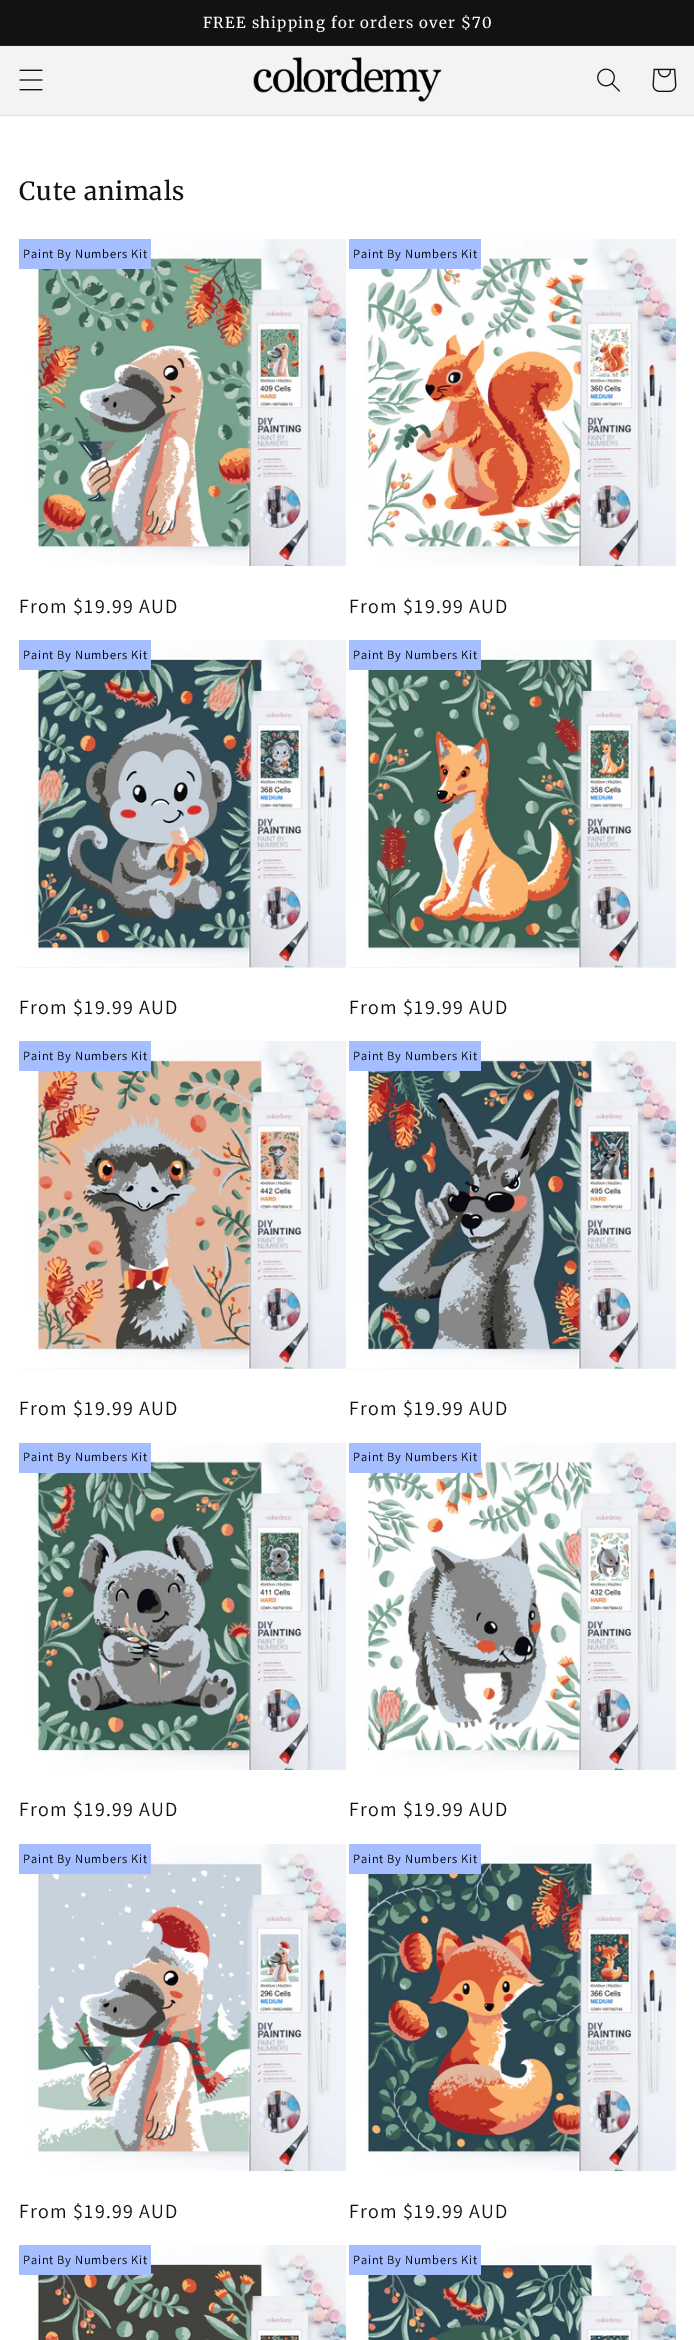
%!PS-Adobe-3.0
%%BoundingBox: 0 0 694 2340
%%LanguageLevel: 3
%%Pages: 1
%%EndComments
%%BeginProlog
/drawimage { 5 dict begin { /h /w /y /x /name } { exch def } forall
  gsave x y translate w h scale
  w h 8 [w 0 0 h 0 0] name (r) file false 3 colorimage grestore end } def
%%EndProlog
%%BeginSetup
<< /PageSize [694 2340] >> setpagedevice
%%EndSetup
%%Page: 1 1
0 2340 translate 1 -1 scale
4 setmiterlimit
1 setgray
0 0 694 2340 rectfill
0.071 setgray
0 0 694 45 rectfill
0.145 setgray
0 45 694 1 rectfill
0.953 setgray
0 46 694 69 rectfill
0.882 setgray
0 115 694 1 rectfill
(images/1.raw) 19 69 24 22 drawimage
(images/2.raw) 253 57 189 45 drawimage
(images/3.raw) 597 68 23 24 drawimage
(images/4.raw) 652 68 25 24 drawimage
(images/5.raw) 19 239 328 328 drawimage
0.643 0.745 1 setrgbcolor
19 239 132 30 rectfill
(images/6.raw) 349 239 328 328 drawimage
349 239 132 30 rectfill
0.953 setgray
19 640 327 328 rectfill
(images/7.raw) 19 640 328 328 drawimage
0.643 0.745 1 setrgbcolor
19 640 132 30 rectfill
0.953 setgray
349 640 327 328 rectfill
(images/8.raw) 349 640 328 328 drawimage
0.643 0.745 1 setrgbcolor
349 640 132 30 rectfill
0.953 setgray
19 1041 327 328 rectfill
(images/9.raw) 19 1041 328 328 drawimage
0.643 0.745 1 setrgbcolor
19 1041 132 30 rectfill
0.953 setgray
349 1041 327 328 rectfill
(images/10.raw) 349 1041 328 328 drawimage
0.643 0.745 1 setrgbcolor
349 1041 132 30 rectfill
(images/11.raw) 19 1442 328 328 drawimage
19 1443 132 30 rectfill
(images/12.raw) 349 1442 328 328 drawimage
349 1443 132 30 rectfill
(images/13.raw) 19 1844 328 328 drawimage
19 1844 132 30 rectfill
(images/14.raw) 349 1844 328 328 drawimage
349 1844 132 30 rectfill
(images/15.raw) 19 2245 328 95 drawimage
19 2245 132 30 rectfill
(images/16.raw) 349 2245 328 95 drawimage
349 2245 132 30 rectfill
/Merriweather-Regular [15 0 0 -15 0 0] selectfont
1 setgray
203 28 moveto 1.25 0 (FREE shipping for orders over $70) ashow
/Merriweather-Regular [25 0 0 -25 0 0] selectfont
0.071 setgray
19 200 moveto 0.75 0 (Cute animals) ashow
/Assistant-Regular [12.5 0 0 -12.5 0 0] selectfont
0 setgray
23 258 moveto 0.75 0 (Paint By Numbers Kit) ashow
/Assistant-Regular [20 0 0 -20 0 0] selectfont
0.071 setgray
19 613 moveto 1.25 0 (From $19.99 AUD) ashow
/Assistant-Regular [12.5 0 0 -12.5 0 0] selectfont
0 setgray
353 258 moveto 0.75 0 (Paint By Numbers Kit) ashow
/Assistant-Regular [20 0 0 -20 0 0] selectfont
0.071 setgray
349 613 moveto 1.25 0 (From $19.99 AUD) ashow
/Assistant-Regular [12.5 0 0 -12.5 0 0] selectfont
0 setgray
23 659 moveto 0.75 0 (Paint By Numbers Kit) ashow
/Assistant-Regular [20 0 0 -20 0 0] selectfont
0.071 setgray
19 1014 moveto 1.25 0 (From $19.99 AUD) ashow
/Assistant-Regular [12.5 0 0 -12.5 0 0] selectfont
0 setgray
353 659 moveto 0.75 0 (Paint By Numbers Kit) ashow
/Assistant-Regular [20 0 0 -20 0 0] selectfont
0.071 setgray
349 1014 moveto 1.25 0 (From $19.99 AUD) ashow
/Assistant-Regular [12.5 0 0 -12.5 0 0] selectfont
0 setgray
23 1060 moveto 0.75 0 (Paint By Numbers Kit) ashow
/Assistant-Regular [20 0 0 -20 0 0] selectfont
0.071 setgray
19 1415 moveto 1.25 0 (From $19.99 AUD) ashow
/Assistant-Regular [12.5 0 0 -12.5 0 0] selectfont
0 setgray
353 1060 moveto 0.75 0 (Paint By Numbers Kit) ashow
/Assistant-Regular [20 0 0 -20 0 0] selectfont
0.071 setgray
349 1415 moveto 1.25 0 (From $19.99 AUD) ashow
/Assistant-Regular [12.5 0 0 -12.5 0 0] selectfont
0 setgray
23 1461 moveto 0.75 0 (Paint By Numbers Kit) ashow
/Assistant-Regular [20 0 0 -20 0 0] selectfont
0.071 setgray
19 1816 moveto 1.25 0 (From $19.99 AUD) ashow
/Assistant-Regular [12.5 0 0 -12.5 0 0] selectfont
0 setgray
353 1461 moveto 0.75 0 (Paint By Numbers Kit) ashow
/Assistant-Regular [20 0 0 -20 0 0] selectfont
0.071 setgray
349 1816 moveto 1.25 0 (From $19.99 AUD) ashow
/Assistant-Regular [12.5 0 0 -12.5 0 0] selectfont
0 setgray
23 1863 moveto 0.75 0 (Paint By Numbers Kit) ashow
/Assistant-Regular [20 0 0 -20 0 0] selectfont
0.071 setgray
19 2218 moveto 1.25 0 (From $19.99 AUD) ashow
/Assistant-Regular [12.5 0 0 -12.5 0 0] selectfont
0 setgray
353 1863 moveto 0.75 0 (Paint By Numbers Kit) ashow
/Assistant-Regular [20 0 0 -20 0 0] selectfont
0.071 setgray
349 2218 moveto 1.25 0 (From $19.99 AUD) ashow
/Assistant-Regular [12.5 0 0 -12.5 0 0] selectfont
0 setgray
23 2264 moveto 0.75 0 (Paint By Numbers Kit) ashow
353 2264 moveto 0.75 0 (Paint By Numbers Kit) ashow
showpage
%%EOF
